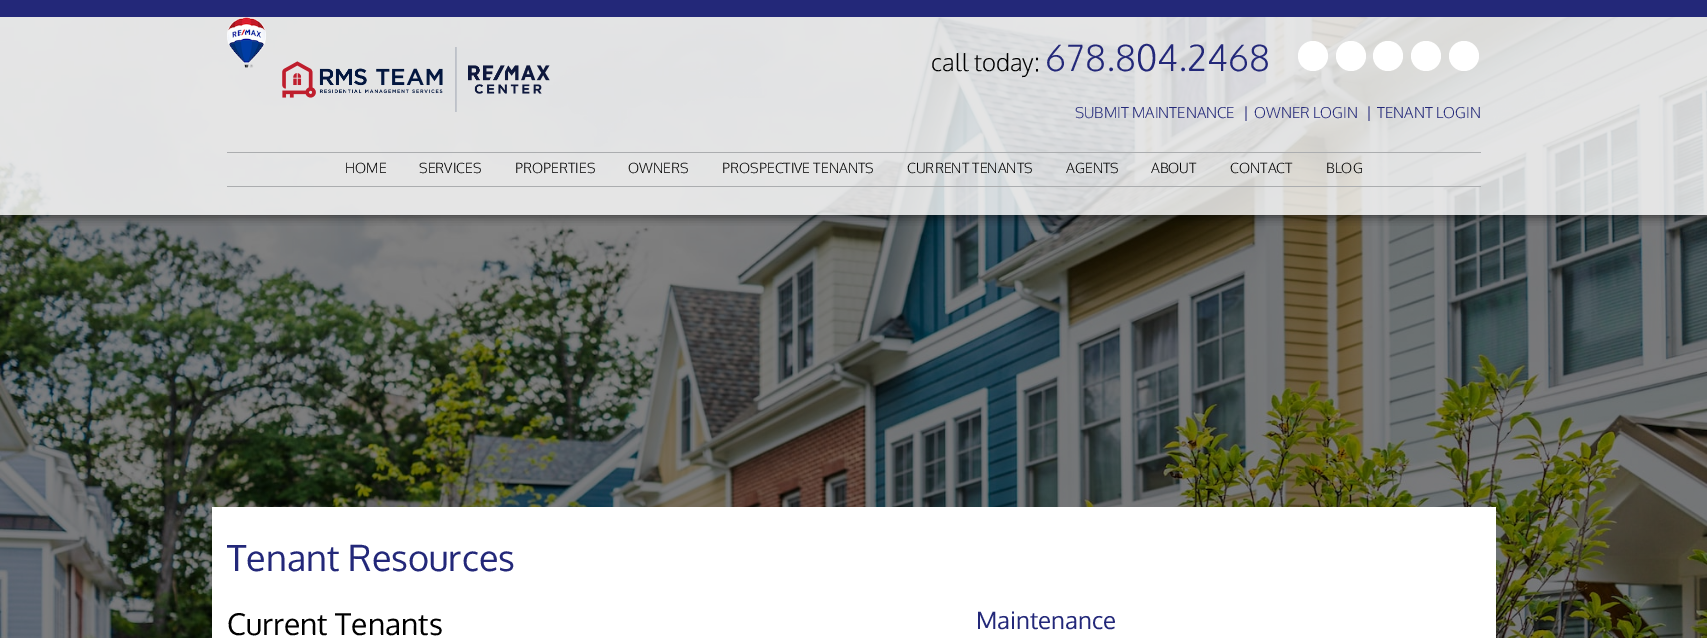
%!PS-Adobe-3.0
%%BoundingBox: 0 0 1707 638
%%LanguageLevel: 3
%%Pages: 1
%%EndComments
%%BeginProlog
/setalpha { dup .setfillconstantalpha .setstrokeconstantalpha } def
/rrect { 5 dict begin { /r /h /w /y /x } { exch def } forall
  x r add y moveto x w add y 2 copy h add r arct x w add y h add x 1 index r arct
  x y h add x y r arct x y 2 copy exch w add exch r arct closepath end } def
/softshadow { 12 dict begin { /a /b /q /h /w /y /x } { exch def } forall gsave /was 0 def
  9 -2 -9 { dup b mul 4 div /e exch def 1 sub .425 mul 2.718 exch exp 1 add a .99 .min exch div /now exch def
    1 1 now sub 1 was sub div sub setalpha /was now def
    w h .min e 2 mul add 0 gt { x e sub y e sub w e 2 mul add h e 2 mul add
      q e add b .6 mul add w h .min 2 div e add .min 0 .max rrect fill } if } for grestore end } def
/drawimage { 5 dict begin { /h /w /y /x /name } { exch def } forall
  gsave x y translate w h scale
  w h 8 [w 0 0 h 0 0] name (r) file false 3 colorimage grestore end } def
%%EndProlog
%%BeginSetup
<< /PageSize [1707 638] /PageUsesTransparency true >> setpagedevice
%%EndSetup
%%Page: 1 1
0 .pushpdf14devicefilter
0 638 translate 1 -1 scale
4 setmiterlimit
1 setgray
0 0 1707 638 rectfill
(images/1.raw) 0 17 1707 621 drawimage
gsave
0 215 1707 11 rectclip
0 setgray
0 2 1707 215 0 5 0.55 softshadow
grestore
0.8 setalpha
0 17 1707 198 rectfill
1 setalpha
0.137 0.157 0.475 setrgbcolor
0 0 1707 17 rectfill
(images/2.raw) 227 17 39 51 drawimage
(images/3.raw) 282 47 268 65 drawimage
1 setgray
newpath 1313 56 15 0 360 arc closepath fill
newpath 1351 56 15 0 360 arc closepath fill
newpath 1388 56 15 0 360 arc closepath fill
newpath 1426 56 15 0 360 arc closepath fill
newpath 1464 56 15 0 360 arc closepath fill
0.671 0.678 0.686 setrgbcolor
227 152 1254 1 rectfill
227 186 1254 1 rectfill
1 setgray
212 507 1284 131 rectfill
/Oxygen-Light [24 0 0 -24 0 0] selectfont
0 setgray
931 71 moveto (call today:) show
/Oxygen-Light [36 0 0 -36 0 0] selectfont
0.137 0.157 0.475 setrgbcolor
1045 71 moveto (678.804.2468) show
/Oxygen-Light [15 0 0 -15 0 0] selectfont
1075 118 moveto (SUBMIT MAINTENANCE) show
1243 118 moveto (|) show
1254 118 moveto (OWNER LOGIN) show
1366 118 moveto (|) show
1377 118 moveto (TENANT LOGIN) show
/Oxygen-Light [14 0 0 -14 0 0] selectfont
0 setgray
345 173 moveto (HOME) show
419 173 moveto (SERVICES) show
515 173 moveto (PROPERTIES) show
628 173 moveto (OWNERS) show
722 173 moveto (PROSPECTIVE TENANTS) show
907 173 moveto (CURRENT TENANTS) show
1066 173 moveto (AGENTS) show
1151 173 moveto (ABOUT) show
1230 173 moveto (CONTACT) show
1326 173 moveto (BLOG) show
/Oxygen-Regular [36 0 0 -36 0 0] selectfont
0.137 0.157 0.475 setrgbcolor
227 571 moveto (Tenant Resources) show
/Oxygen-Regular [30 0 0 -30 0 0] selectfont
0 setgray
227 635 moveto (Current Tenants) show
/Oxygen-Regular [24 0 0 -24 0 0] selectfont
0.137 0.157 0.475 setrgbcolor
976 629 moveto (Maintenance) show
.poppdf14devicefilter showpage
%%EOF
